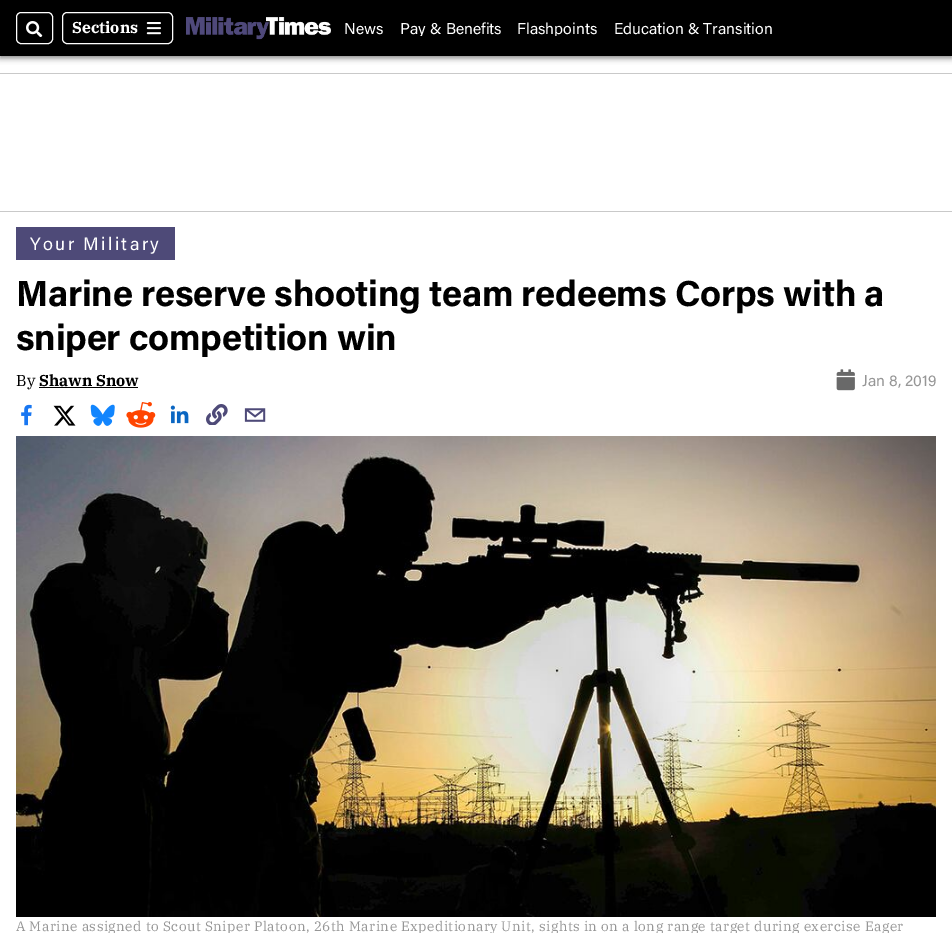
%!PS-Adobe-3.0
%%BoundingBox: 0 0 952 933
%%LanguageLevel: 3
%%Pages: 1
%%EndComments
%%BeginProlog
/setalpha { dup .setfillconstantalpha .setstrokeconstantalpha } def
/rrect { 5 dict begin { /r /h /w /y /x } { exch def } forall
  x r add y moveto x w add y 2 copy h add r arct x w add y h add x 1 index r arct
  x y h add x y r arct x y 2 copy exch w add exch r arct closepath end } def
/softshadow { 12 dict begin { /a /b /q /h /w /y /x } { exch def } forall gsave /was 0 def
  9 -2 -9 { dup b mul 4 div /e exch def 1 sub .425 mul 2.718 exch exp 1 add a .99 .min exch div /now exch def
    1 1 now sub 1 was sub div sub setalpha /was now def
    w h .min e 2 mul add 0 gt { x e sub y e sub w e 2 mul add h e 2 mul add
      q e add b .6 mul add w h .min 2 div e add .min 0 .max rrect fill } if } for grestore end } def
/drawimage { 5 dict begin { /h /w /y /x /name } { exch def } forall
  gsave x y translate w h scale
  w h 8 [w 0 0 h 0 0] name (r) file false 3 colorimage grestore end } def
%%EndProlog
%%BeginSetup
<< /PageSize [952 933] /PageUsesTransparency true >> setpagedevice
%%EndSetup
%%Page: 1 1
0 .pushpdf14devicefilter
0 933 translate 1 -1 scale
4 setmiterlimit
1 setgray
0 0 952 933 rectfill
0 setgray
0 2 952 56 0 3 0.5 softshadow
0 0 952 56 rectfill
1 setgray
16.5 12.5 36 31 4.5 rrect stroke
(images/1.raw) 26 21 17 16 drawimage
62.5 12.5 110 31 4.5 rrect stroke
(images/2.raw) 146 22 15 13 drawimage
(images/3.raw) 186 17 145 23 drawimage
0.788 setgray
0 73 952 1 rectfill
0 211 952 1 rectfill
0.306 0.29 0.471 setrgbcolor
16 227 159 33 rectfill
0 setgray
39 387 99 1 rectfill
(images/4.raw) 836 369 19 22 drawimage
(images/5.raw) 21 404 11 22 drawimage
(images/6.raw) 53 405 23 21 drawimage
(images/7.raw) 90 404 25 22 drawimage
(images/8.raw) 126 402 30 26 drawimage
(images/9.raw) 170 405 19 19 drawimage
(images/10.raw) 206 404 22 21 drawimage
(images/11.raw) 244 408 22 14 drawimage
(images/12.raw) 16 436 920 481 drawimage
/IBMPlexSerif-Bold [15.75 0 0 -15.75 0 0] selectfont
1 setgray
72 33 moveto (Sections) show
/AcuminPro-Regular [15.75 0 0 -15.75 0 0] selectfont
344 34 moveto (News) show
gsave
344 20 578 16 rectclip
400 34 moveto (Pay & Benefits) show
517 34 moveto (Flashpoints) show
grestore
614 34 moveto (Education & Transition) show
/AcuminPro-Regular [18 0 0 -18 0 0] selectfont
30 250 moveto 2.4 0 (Your Military) ashow
/AcuminPro-Bold [36.3 0 0 -36.3 0 0] selectfont
0 setgray
16 306 moveto -0.3 0 (Marine reserve shooting team redeems Corps with a) ashow
gsave
16 270 920 87 rectclip
16 350 moveto -0.3 0 (sniper competition win) ashow
grestore
/IBMPlexSerif-Regular [15.75 0 0 -15.75 0 0] selectfont
16 386 moveto (By) show
/IBMPlexSerif-Bold [15.75 0 0 -15.75 0 0] selectfont
39 386 moveto (Shawn Snow) show
/AcuminPro-Regular [15.75 0 0 -15.75 0 0] selectfont
0.588 setgray
862 386 moveto (Jan 8, 2019) show
/IBMPlexSerif-Regular [13.65 0 0 -13.65 0 0] selectfont
16 931 moveto 0.46 0 (A Marine assigned to Scout Sniper Platoon, 26th Marine Expeditionary Unit, sights in on a long range target during exercise Eager) ashow
.poppdf14devicefilter showpage
%%EOF
